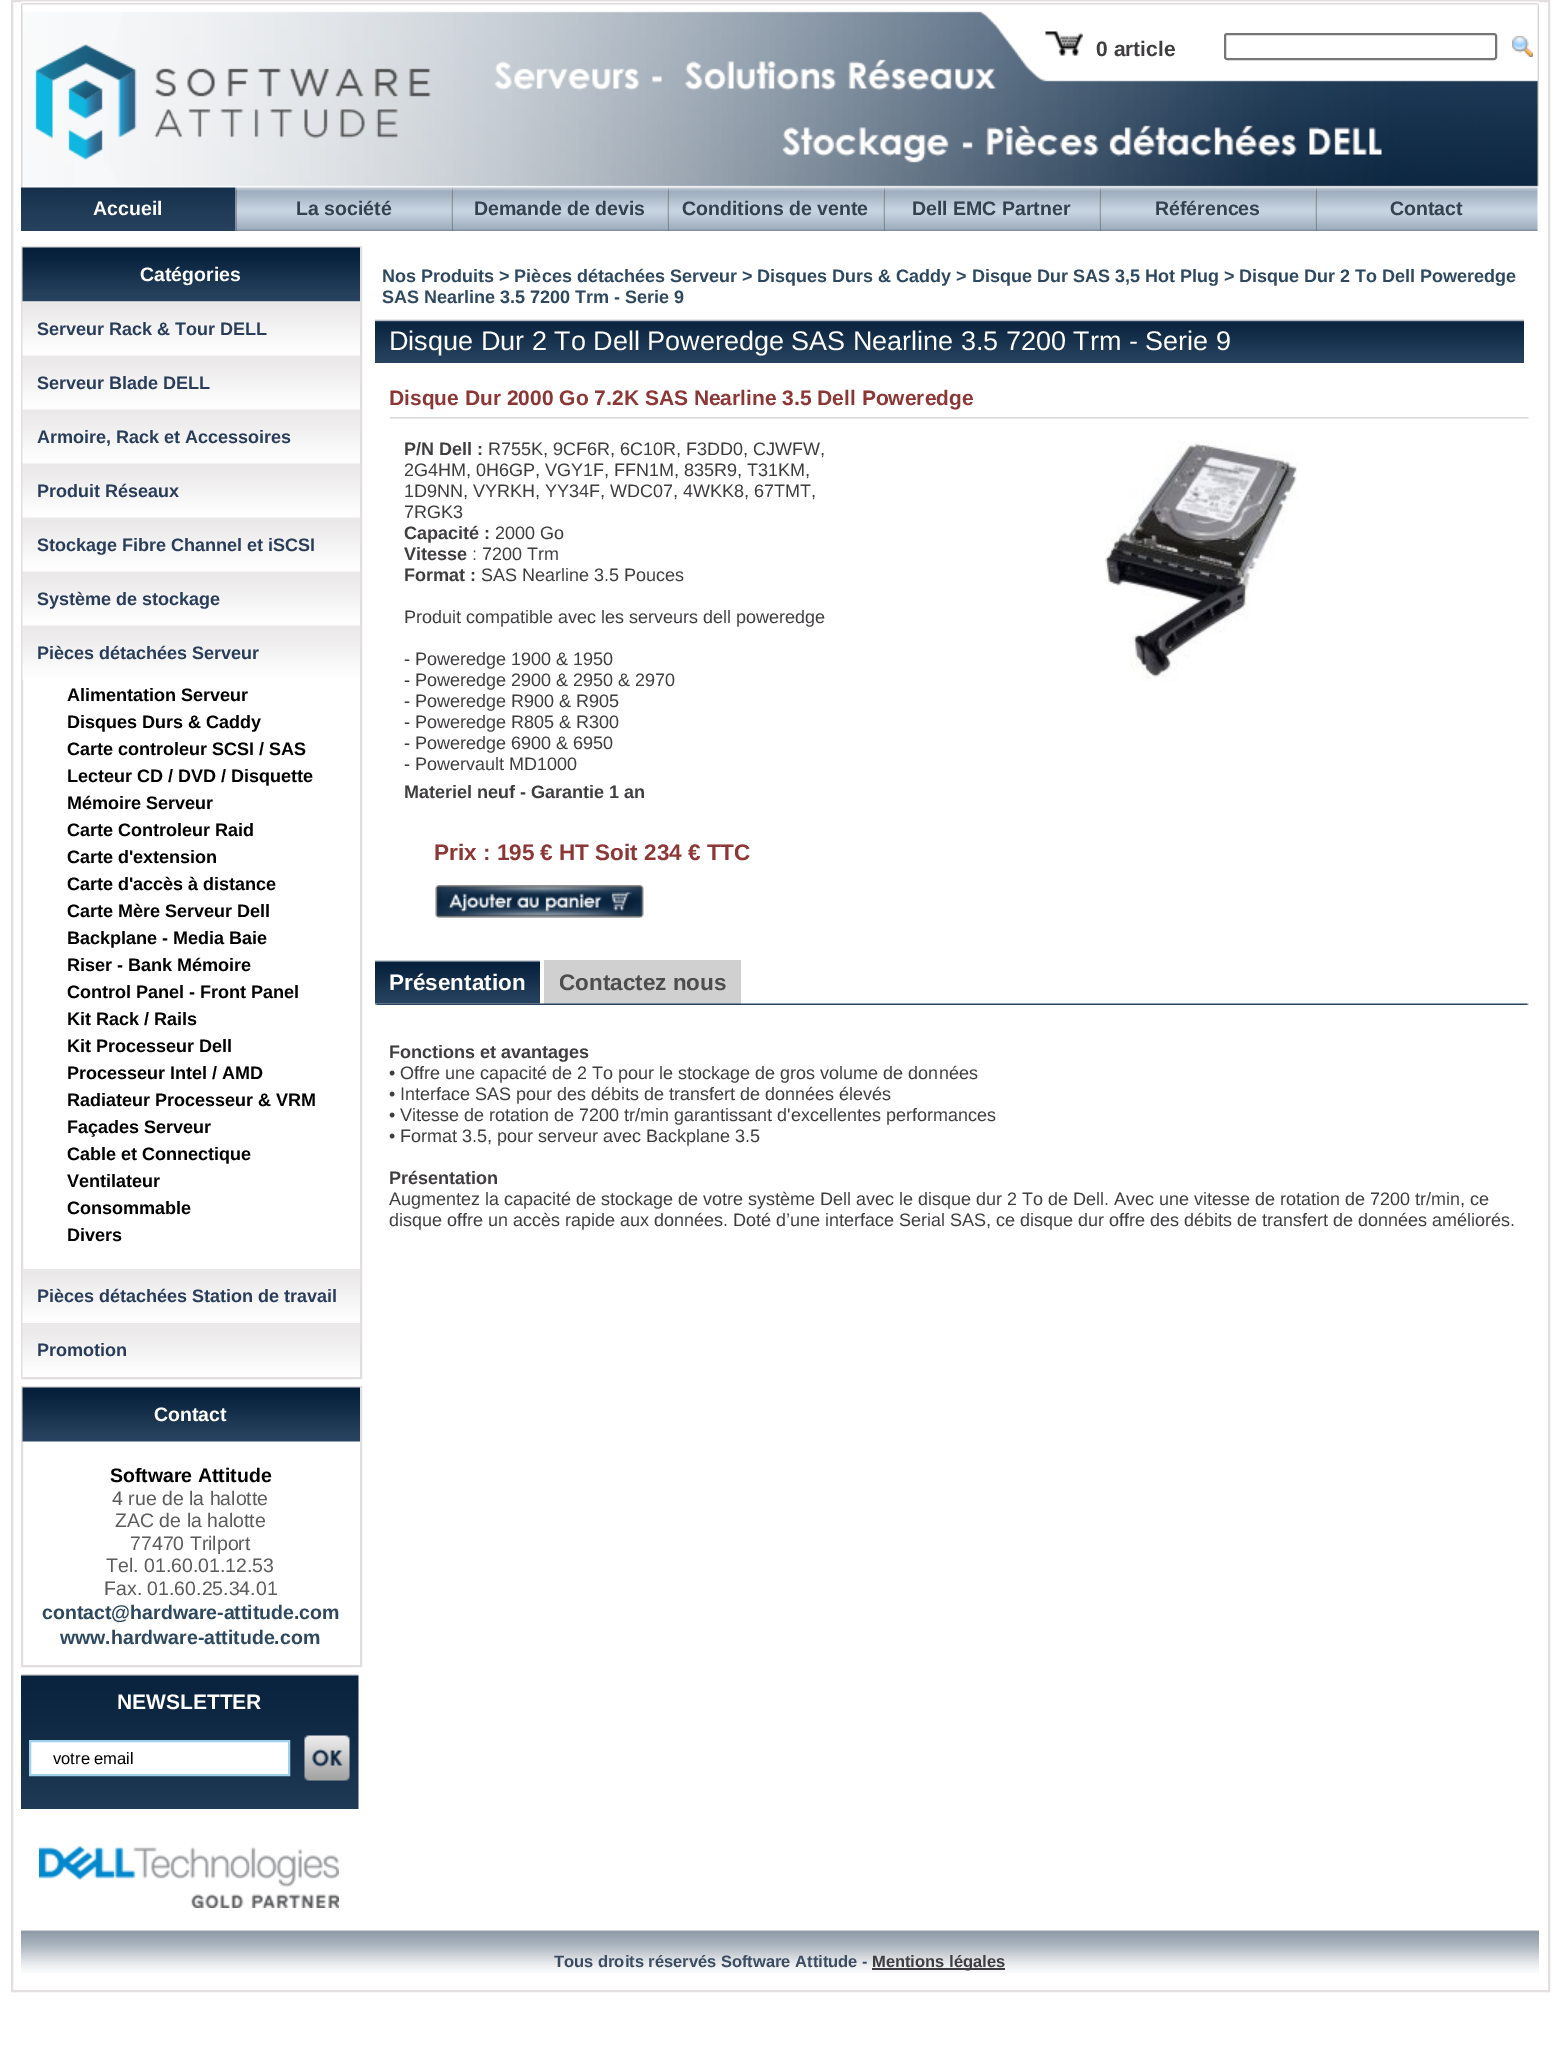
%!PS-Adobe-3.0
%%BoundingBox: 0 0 1558 2072
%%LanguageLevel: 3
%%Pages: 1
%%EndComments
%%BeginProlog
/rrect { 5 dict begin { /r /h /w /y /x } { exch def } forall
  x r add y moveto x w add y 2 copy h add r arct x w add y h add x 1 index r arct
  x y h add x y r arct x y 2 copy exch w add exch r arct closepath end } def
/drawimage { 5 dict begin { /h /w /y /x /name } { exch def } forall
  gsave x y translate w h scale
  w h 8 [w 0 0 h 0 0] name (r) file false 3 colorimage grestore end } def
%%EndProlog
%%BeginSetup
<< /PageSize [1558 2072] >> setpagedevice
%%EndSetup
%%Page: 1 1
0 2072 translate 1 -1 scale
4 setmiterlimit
1 setgray
0 0 1558 2072 rectfill
0.89 0.875 0.878 setrgbcolor
2 setlinewidth
12 1 1537 1990 rectstroke
(images/1.raw) 21 1 1518 187 drawimage
(images/2.raw) 1045 31 38 25 drawimage
0.463 setgray
1225 34 271 25 2 rrect stroke
(images/3.raw) 1512 36 21 21 drawimage
(images/4.raw) 21 187 215 44 drawimage
(images/5.raw) 235 187 2 44 drawimage
(images/6.raw) 237 187 215 44 drawimage
(images/7.raw) 451 187 2 44 drawimage
(images/6.raw) 453 187 215 44 drawimage
(images/7.raw) 667 187 2 44 drawimage
(images/6.raw) 669 187 215 44 drawimage
(images/7.raw) 883 187 2 44 drawimage
(images/6.raw) 885 187 215 44 drawimage
(images/7.raw) 1099 187 2 44 drawimage
(images/6.raw) 1101 187 215 44 drawimage
(images/7.raw) 1315 187 2 44 drawimage
(images/8.raw) 1317 187 221 44 drawimage
0.89 0.875 0.878 setrgbcolor
22 247 339 1131 rectstroke
(images/9.raw) 22 247 338 55 drawimage
(images/10.raw) 22 301 338 55 drawimage
(images/11.raw) 22 355 338 55 drawimage
(images/11.raw) 22 409 338 55 drawimage
(images/11.raw) 22 463 338 55 drawimage
(images/11.raw) 22 517 338 55 drawimage
(images/11.raw) 22 571 338 55 drawimage
(images/11.raw) 22 625 338 55 drawimage
(images/12.raw) 22 1269 338 54 drawimage
(images/12.raw) 22 1323 338 54 drawimage
22 1387 339 279 rectstroke
(images/9.raw) 22 1387 338 55 drawimage
(images/13.raw) 21 1674 338 135 drawimage
1 setgray
newpath 30 1741 moveto 289 1741 lineto 289 1775 lineto 30 1775 lineto closepath gsave fill grestore
0.635 0.82 0.922 setrgbcolor
stroke
(images/14.raw) 304 1735 46 46 drawimage
(images/15.raw) 39 1846 300 62 drawimage
(images/16.raw) 375 319 1149 44 drawimage
(images/17.raw) 390 417 1139 2 drawimage
(images/18.raw) 435 885 209 33 drawimage
(images/19.raw) 1105 441 193 240 drawimage
(images/20.raw) 375 960 165 44 drawimage
0.816 setgray
544 960 197 44 rectfill
(images/21.raw) 375 1003 1154 2 drawimage
(images/22.raw) 21 1930 1518 43 drawimage
0.247 0.239 0.251 setrgbcolor
872 1968 133 2 rectfill
/LiberationSans-Bold [21 0 0 -21 0 0] selectfont
1096 56 moveto (0 article) show
/LiberationSans-Bold [19.5 0 0 -19.5 0 0] selectfont
1 setgray
93 215 moveto (Accueil) show
0.204 0.259 0.31 setrgbcolor
296 215 moveto (La société) show
474 215 moveto (Demande de devis) show
682 215 moveto (Conditions de vente) show
912 215 moveto (Dell EMC Partner) show
1155 215 moveto (Références) show
1390 215 moveto (Contact) show
1 setgray
140 281 moveto (Catégories) show
/LiberationSans-Bold [18 0 0 -18 0 0] selectfont
0.161 0.239 0.353 setrgbcolor
37 335 moveto (Serveur Rack & Tour DELL) show
37 389 moveto (Serveur Blade DELL) show
37 443 moveto (Armoire, Rack et Accessoires) show
37 497 moveto (Produit Réseaux) show
37 551 moveto (Stockage Fibre Channel et iSCSI) show
37 605 moveto (Système de stockage) show
37 659 moveto (Pièces détachées Serveur) show
0 setgray
67 701 moveto (Alimentation Serveur) show
67 728 moveto (Disques Durs & Caddy) show
67 755 moveto (Carte controleur SCSI / SAS) show
67 782 moveto (Lecteur CD / DVD / Disquette) show
67 809 moveto (Mémoire Serveur) show
67 836 moveto (Carte Controleur Raid) show
67 863 moveto (Carte d'extension) show
67 890 moveto (Carte d'accès à distance) show
67 917 moveto (Carte Mère Serveur Dell) show
67 944 moveto (Backplane - Media Baie) show
67 971 moveto (Riser - Bank Mémoire) show
67 998 moveto (Control Panel - Front Panel) show
67 1025 moveto (Kit Rack / Rails) show
67 1052 moveto (Kit Processeur Dell) show
67 1079 moveto (Processeur Intel / AMD) show
67 1106 moveto (Radiateur Processeur & VRM) show
67 1133 moveto (Façades Serveur) show
67 1160 moveto (Cable et Connectique) show
67 1187 moveto (Ventilateur) show
67 1214 moveto (Consommable) show
67 1241 moveto (Divers) show
0.161 0.239 0.353 setrgbcolor
37 1302 moveto (Pièces détachées Station de travail) show
37 1356 moveto (Promotion) show
/LiberationSans-Bold [19.5 0 0 -19.5 0 0] selectfont
1 setgray
154 1421 moveto (Contact) show
0 setgray
110 1482 moveto (Software Attitude) show
/LiberationSans-Regular [19.5 0 0 -19.5 0 0] selectfont
0.361 setgray
112 1505 moveto (4 rue de la halotte) show
115 1527 moveto (ZAC de la halotte) show
130 1550 moveto (77470 Trilport) show
106 1572 moveto (Tel. 01.60.01.12.53) show
104 1595 moveto (Fax. 01.60.25.34.01) show
/LiberationSans-Bold [19.5 0 0 -19.5 0 0] selectfont
0.176 0.282 0.373 setrgbcolor
42 1619 moveto (contact@hardware-attitude.com) show
60 1644 moveto (www.hardware-attitude.com) show
/LiberationSans-Bold [21 0 0 -21 0 0] selectfont
1 setgray
117 1709 moveto (NEWSLETTER) show
/LiberationSans-Regular [16.5 0 0 -16.5 0 0] selectfont
0 setgray
53 1764 moveto (votre email) show
/LiberationSans-Bold [18 0 0 -18 0 0] selectfont
0.176 0.282 0.373 setrgbcolor
382 282 moveto (Nos Produits > Pièces détachées Serveur > Disques Durs & Caddy > Disque Dur SAS 3,5 Hot Plug > Disque Dur 2 To Dell Poweredge) show
382 303 moveto (SAS Nearline 3.5 7200 Trm - Serie 9) show
/LiberationSans-Regular [27 0 0 -27 0 0] selectfont
1 setgray
389 350 moveto (Disque Dur 2 To Dell Poweredge SAS Nearline 3.5 7200 Trm - Serie 9) show
/LiberationSans-Bold [21 0 0 -21 0 0] selectfont
0.553 0.212 0.212 setrgbcolor
389 405 moveto (Disque Dur 2000 Go 7.2K SAS Nearline 3.5 Dell Poweredge) show
/LiberationSans-Bold [18 0 0 -18 0 0] selectfont
0.247 0.239 0.251 setrgbcolor
404 455 moveto (P/N Dell :) show
/LiberationSans-Regular [18 0 0 -18 0 0] selectfont
488 455 moveto (R755K, 9CF6R, 6C10R, F3DD0, CJWFW,) show
404 476 moveto (2G4HM, 0H6GP, VGY1F, FFN1M, 835R9, T31KM,) show
404 497 moveto (1D9NN, VYRKH, YY34F, WDC07, 4WKK8, 67TMT,) show
404 518 moveto (7RGK3) show
/LiberationSans-Bold [18 0 0 -18 0 0] selectfont
404 539 moveto (Capacité :) show
/LiberationSans-Regular [18 0 0 -18 0 0] selectfont
495 539 moveto (2000 Go) show
/LiberationSans-Bold [18 0 0 -18 0 0] selectfont
404 560 moveto (Vitesse) show
/LiberationSans-Regular [18 0 0 -18 0 0] selectfont
472 560 moveto (: 7200 Trm) show
/LiberationSans-Bold [18 0 0 -18 0 0] selectfont
404 581 moveto (Format :) show
/LiberationSans-Regular [18 0 0 -18 0 0] selectfont
481 581 moveto (SAS Nearline 3.5 Pouces) show
404 623 moveto (Produit compatible avec les serveurs dell poweredge) show
404 665 moveto (- Poweredge 1900 & 1950) show
404 686 moveto (- Poweredge 2900 & 2950 & 2970) show
404 707 moveto (- Poweredge R900 & R905) show
404 728 moveto (- Poweredge R805 & R300) show
404 749 moveto (- Poweredge 6900 & 6950) show
404 770 moveto (- Powervault MD1000) show
/LiberationSans-Bold [18 0 0 -18 0 0] selectfont
404 798 moveto (Materiel neuf - Garantie 1 an) show
/LiberationSans-Bold [22.5 0 0 -22.5 0 0] selectfont
0.553 0.212 0.212 setrgbcolor
434 860 moveto (Prix : 195 € HT Soit 234 € TTC) show
1 setgray
389 990 moveto (Présentation) show
0.302 setgray
559 990 moveto (Contactez nous) show
/LiberationSans-Bold [18 0 0 -18 0 0] selectfont
0.247 0.239 0.251 setrgbcolor
389 1058 moveto (Fonctions et avantages) show
/LiberationSans-Regular [18 0 0 -18 0 0] selectfont
389 1079 moveto (• Offre une capacité de 2 To pour le stockage de gros volume de données) show
389 1100 moveto (• Interface SAS pour des débits de transfert de données élevés) show
389 1121 moveto (• Vitesse de rotation de 7200 tr/min garantissant d'excellentes performances) show
389 1142 moveto (• Format 3.5, pour serveur avec Backplane 3.5) show
/LiberationSans-Bold [18 0 0 -18 0 0] selectfont
389 1184 moveto (Présentation) show
/LiberationSans-Regular [18 0 0 -18 0 0] selectfont
389 1205 moveto (Augmentez la capacité de stockage de votre système Dell avec le disque dur 2 To de Dell. Avec une vitesse de rotation de 7200 tr/min, ce) show
389 1226 moveto (disque offre un accès rapide aux données. Doté d’une interface Serial SAS, ce disque dur offre des débits de transfert de données améliorés.) show
/LiberationSans-Bold [16.5 0 0 -16.5 0 0] selectfont
0.231 0.298 0.38 setrgbcolor
554 1967 moveto (Tous droits réservés Software Attitude -) show
0.247 0.239 0.251 setrgbcolor
872 1967 moveto (Mentions légales) show
showpage
%%EOF
